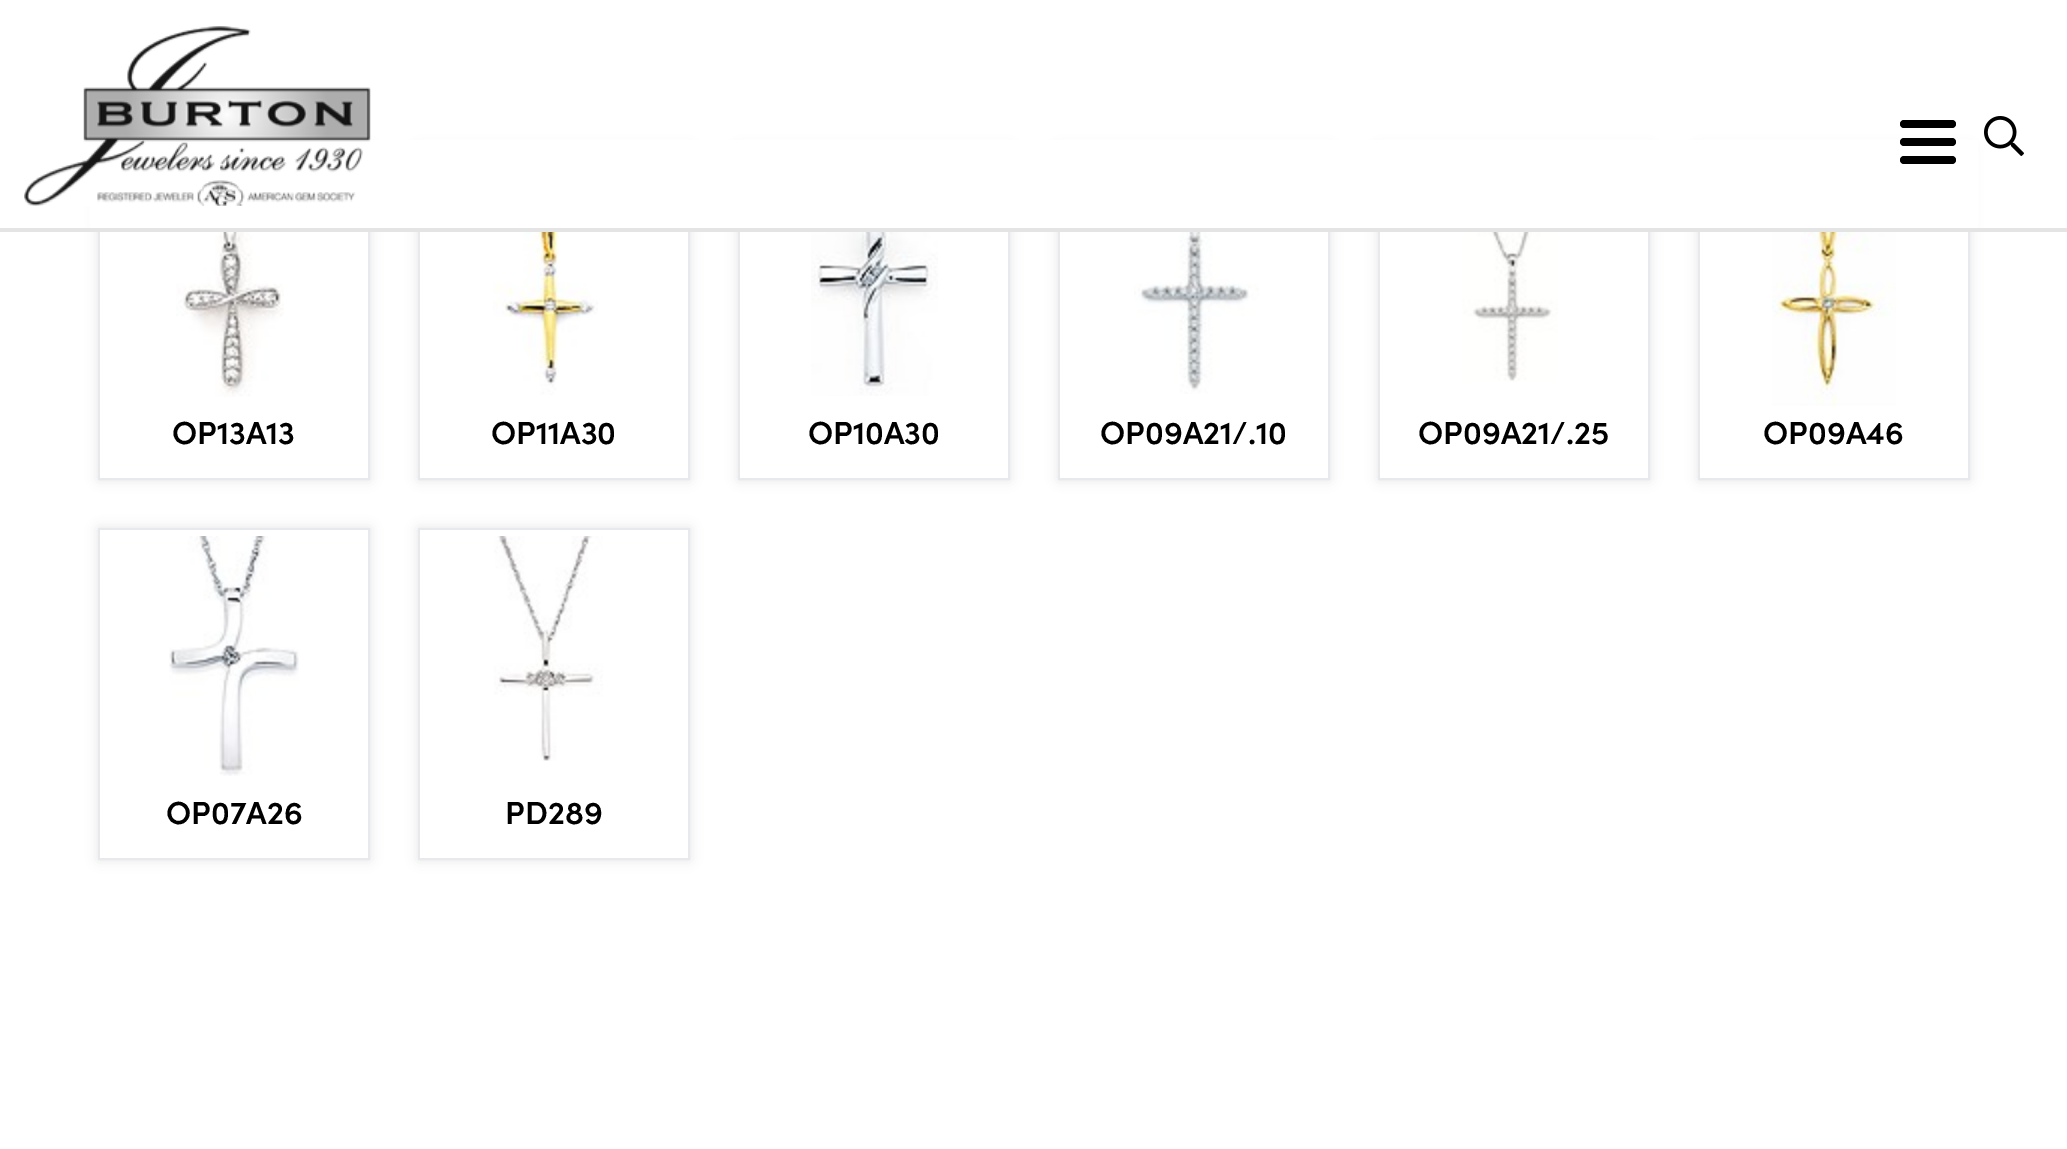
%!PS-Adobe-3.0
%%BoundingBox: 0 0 2067 1149
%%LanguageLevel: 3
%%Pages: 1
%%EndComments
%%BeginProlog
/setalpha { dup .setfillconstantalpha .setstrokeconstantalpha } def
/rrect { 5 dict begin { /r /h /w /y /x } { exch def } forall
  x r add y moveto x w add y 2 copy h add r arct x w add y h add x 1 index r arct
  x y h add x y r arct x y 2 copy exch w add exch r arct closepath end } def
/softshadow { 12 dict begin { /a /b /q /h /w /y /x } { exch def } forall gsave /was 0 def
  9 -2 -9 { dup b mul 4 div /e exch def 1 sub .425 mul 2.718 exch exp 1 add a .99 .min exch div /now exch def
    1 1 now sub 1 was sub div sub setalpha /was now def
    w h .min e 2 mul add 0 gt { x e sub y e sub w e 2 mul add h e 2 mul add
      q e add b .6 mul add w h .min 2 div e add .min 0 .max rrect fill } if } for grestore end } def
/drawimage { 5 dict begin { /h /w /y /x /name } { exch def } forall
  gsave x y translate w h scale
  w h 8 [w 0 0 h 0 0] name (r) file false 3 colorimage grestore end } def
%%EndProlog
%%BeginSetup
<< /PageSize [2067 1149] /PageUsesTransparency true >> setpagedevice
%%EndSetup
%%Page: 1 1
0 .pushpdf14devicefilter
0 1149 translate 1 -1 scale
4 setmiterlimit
1 setgray
0 0 2067 1149 rectfill
0 setgray
98 148 272 332 0 6 0.1 softshadow
0.906 0.914 0.925 setrgbcolor
2 setlinewidth
99 149 270 330 rectstroke
0 setgray
418 148 272 332 0 6 0.1 softshadow
0.906 0.914 0.925 setrgbcolor
419 149 270 330 rectstroke
0 setgray
738 148 272 332 0 6 0.1 softshadow
0.906 0.914 0.925 setrgbcolor
739 149 270 330 rectstroke
0 setgray
1058 148 272 332 0 6 0.1 softshadow
0.906 0.914 0.925 setrgbcolor
1059 149 270 330 rectstroke
0 setgray
1378 148 272 332 0 6 0.1 softshadow
0.906 0.914 0.925 setrgbcolor
1379 149 270 330 rectstroke
0 setgray
1698 148 272 332 0 6 0.1 softshadow
0.906 0.914 0.925 setrgbcolor
1699 149 270 330 rectstroke
1 setgray
90 140 1888 88 rectfill
0.894 setgray
0 228 2067 4 rectfill
(images/1.raw) 24 26 347 180 drawimage
0 setgray
1900 120 56 8 4 rrect fill
1900 138 56 8 4 rrect fill
1900 156 56 8 4 rrect fill
(images/2.raw) 1984 116 40 40 drawimage
1 setgray
100 232 268 246 rectfill
(images/3.raw) 176 232 108 165 drawimage
420 232 268 246 rectfill
(images/4.raw) 493 232 105 163 drawimage
740 232 268 246 rectfill
(images/5.raw) 811 232 127 164 drawimage
1060 232 268 246 rectfill
(images/6.raw) 1134 232 125 162 drawimage
1380 232 268 246 rectfill
(images/7.raw) 1462 232 96 150 drawimage
1700 232 268 246 rectfill
(images/8.raw) 1772 232 124 174 drawimage
0 setgray
98 528 272 332 0 6 0.1 softshadow
0.906 0.914 0.925 setrgbcolor
99 529 270 330 rectstroke
1 setgray
100 530 268 328 rectfill
(images/9.raw) 169 536 130 240 drawimage
0 setgray
418 528 272 332 0 6 0.1 softshadow
0.906 0.914 0.925 setrgbcolor
419 529 270 330 rectstroke
1 setgray
420 530 268 328 rectfill
(images/10.raw) 494 536 109 225 drawimage
/Sofia-SemiBold [32 0 0 -32 0 0] selectfont
0 setgray
172 444 moveto (OP13A13) show
491 444 moveto (OP11A30) show
808 444 moveto (OP10A30) show
1100 444 moveto (OP09A21/.10) show
1418 444 moveto (OP09A21/.25) show
1763 444 moveto (OP09A46) show
166 824 moveto (OP07A26) show
505 824 moveto (PD289) show
.poppdf14devicefilter showpage
%%EOF
